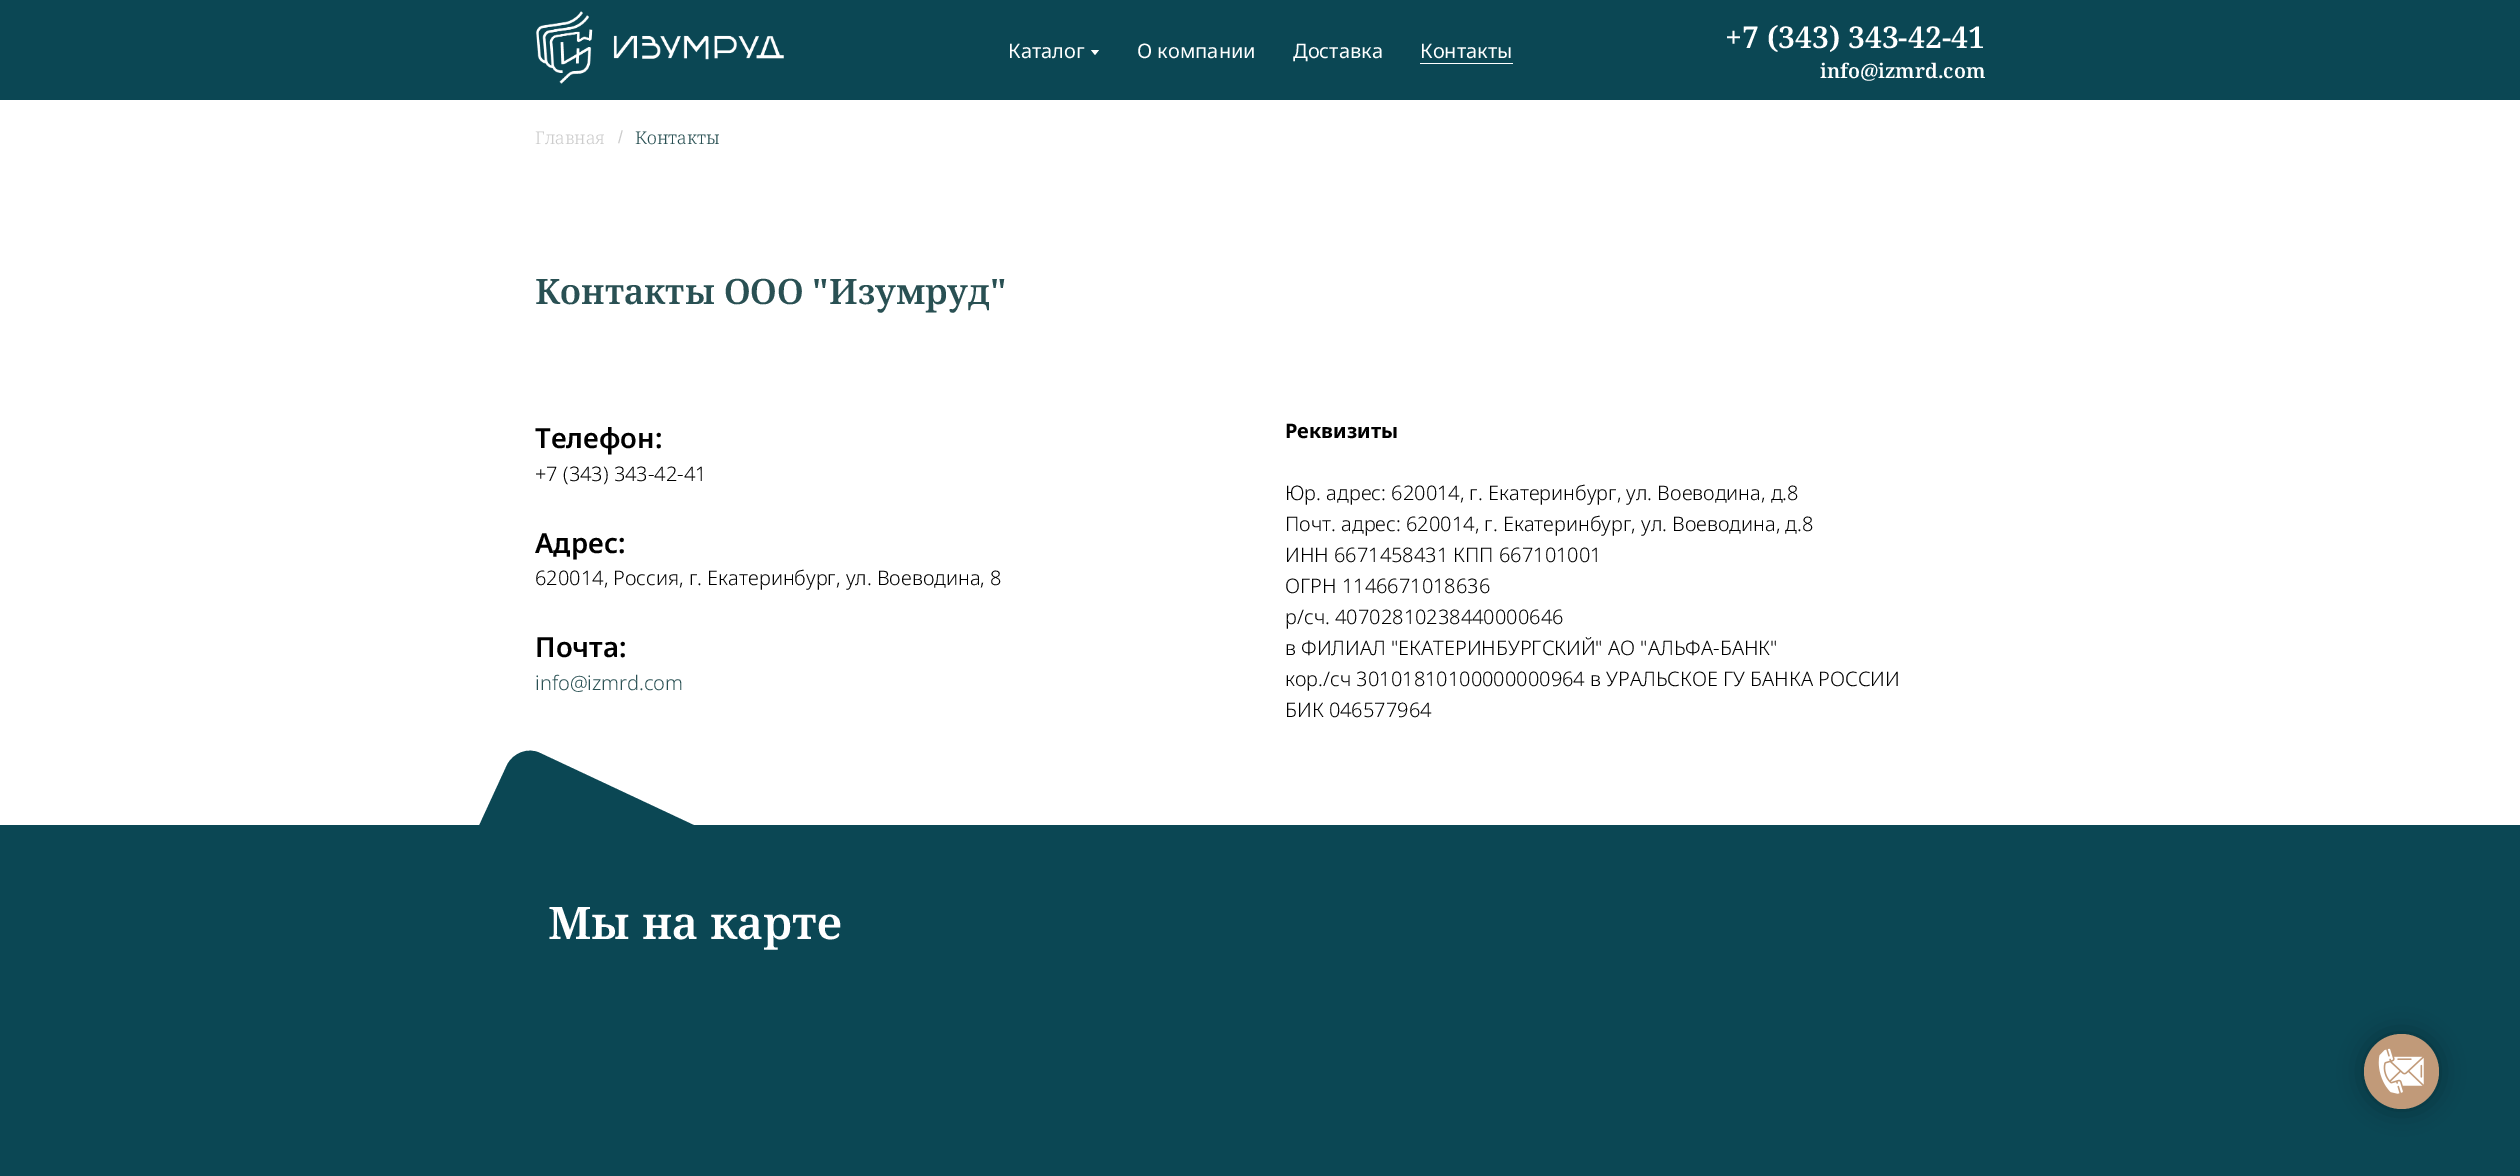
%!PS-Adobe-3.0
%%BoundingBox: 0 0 2520 1176
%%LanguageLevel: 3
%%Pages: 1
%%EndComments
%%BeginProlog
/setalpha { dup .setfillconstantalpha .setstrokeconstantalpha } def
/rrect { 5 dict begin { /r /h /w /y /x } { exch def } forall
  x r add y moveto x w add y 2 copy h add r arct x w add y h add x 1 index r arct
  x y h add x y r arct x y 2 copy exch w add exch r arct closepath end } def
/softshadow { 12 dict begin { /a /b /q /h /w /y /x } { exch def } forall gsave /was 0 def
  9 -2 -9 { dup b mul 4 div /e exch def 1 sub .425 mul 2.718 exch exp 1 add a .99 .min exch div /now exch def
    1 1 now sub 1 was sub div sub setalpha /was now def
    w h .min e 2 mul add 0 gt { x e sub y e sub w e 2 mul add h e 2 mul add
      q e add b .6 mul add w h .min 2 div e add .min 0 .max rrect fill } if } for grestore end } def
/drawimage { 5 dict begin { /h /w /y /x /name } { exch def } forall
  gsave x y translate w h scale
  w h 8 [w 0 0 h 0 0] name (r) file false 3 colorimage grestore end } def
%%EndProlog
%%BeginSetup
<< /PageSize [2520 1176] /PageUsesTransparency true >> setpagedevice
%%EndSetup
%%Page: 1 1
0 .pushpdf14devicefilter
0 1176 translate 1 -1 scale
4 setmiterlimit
1 setgray
0 0 2520 1176 rectfill
0.043 0.278 0.329 setrgbcolor
0 0 2520 100 rectfill
(images/1.raw) 536 11 248 73 drawimage
1 setgray
newpath 1091 50 moveto 1099 50 lineto 1095 55 lineto closepath fill
1420 63 93 1 rectfill
0.043 0.278 0.329 setrgbcolor
0 825 2520 351 rectfill
newpath 540 753 moveto 700 828 lineto 713 834 718 848 712 861 curveto 677 937 lineto 671 949 656 955 643 949 curveto 484 874 lineto 471 869 466 854 472 841 curveto 507 765 lineto 513 753 528 747 540 753 curveto closepath fill
0 setgray
2364 1034 75 75 37.5 12.5 0.3 softshadow
0.757 0.604 0.475 setrgbcolor
newpath 2401.5 1071.5 37.5 0 360 arc closepath fill
(images/2.raw) 2378 1048 46 46 drawimage
/NotoSans-Regular [20 0 0 -20 0 0] selectfont
1 setgray
1008 58 moveto (Каталог) show
1137 58 moveto (О компании) show
1293 58 moveto (Доставка) show
1420 58 moveto (Контакты) show
/NotoSerif-SemiBold [30 0 0 -30 0 0] selectfont
1725 48 moveto (+7 \(343\) 343-42-41) show
/NotoSerif-SemiBold [20 0 0 -20 0 0] selectfont
1820 78 moveto (info@izmrd.com) show
/NotoSerif-Light [17.5 0 0 -17.5 0 0] selectfont
0.8 setgray
535 144 moveto (Главная) show
/LiberationSans-Regular [17.5 0 0 -17.5 0 0] selectfont
618 143 moveto (/) show
/NotoSerif-Light [17.5 0 0 -17.5 0 0] selectfont
0.161 0.314 0.325 setrgbcolor
635 144 moveto (Контакты) show
/NotoSerif-SemiBold [35 0 0 -35 0 0] selectfont
535 304 moveto (Контакты ООО "Изумруд") show
/NotoSans-SemiBold [27.5 0 0 -27.5 0 0] selectfont
0 setgray
535 448 moveto (Телефон:) show
/NotoSans-Light [20 0 0 -20 0 0] selectfont
535 481 moveto (+7 \(343\) 343-42-41) show
/NotoSans-SemiBold [27.5 0 0 -27.5 0 0] selectfont
535 553 moveto (Адрес:) show
/NotoSans-Light [20 0 0 -20 0 0] selectfont
535 585 moveto (620014, Россия, г. Екатеринбург, ул. Воеводина, 8) show
/NotoSans-SemiBold [27.5 0 0 -27.5 0 0] selectfont
535 657 moveto (Почта:) show
/NotoSans-Light [20 0 0 -20 0 0] selectfont
0.161 0.314 0.325 setrgbcolor
535 690 moveto (info@izmrd.com) show
/NotoSans-Bold [20 0 0 -20 0 0] selectfont
0 setgray
1285 438 moveto (Реквизиты) show
/NotoSans-Light [20 0 0 -20 0 0] selectfont
1285 500 moveto (Юр. адрес: 620014, г. Екатеринбург, ул. Воеводина, д.8) show
1285 531 moveto (Почт. адрес: 620014, г. Екатеринбург, ул. Воеводина, д.8) show
1285 562 moveto (ИНН 6671458431 КПП 667101001) show
1285 593 moveto (ОГРН 1146671018636) show
1285 624 moveto (р/сч. 40702810238440000646) show
1285 655 moveto (в ФИЛИАЛ "ЕКАТЕРИНБУРГСКИЙ" АО "АЛЬФА-БАНК") show
1285 686 moveto (кор./сч 30101810100000000964 в УРАЛЬСКОЕ ГУ БАНКА РОССИИ) show
1285 717 moveto (БИК 046577964) show
/NotoSerif-SemiBold [45 0 0 -45 0 0] selectfont
1 setgray
548 939 moveto (Мы на карте) show
.poppdf14devicefilter showpage
%%EOF
